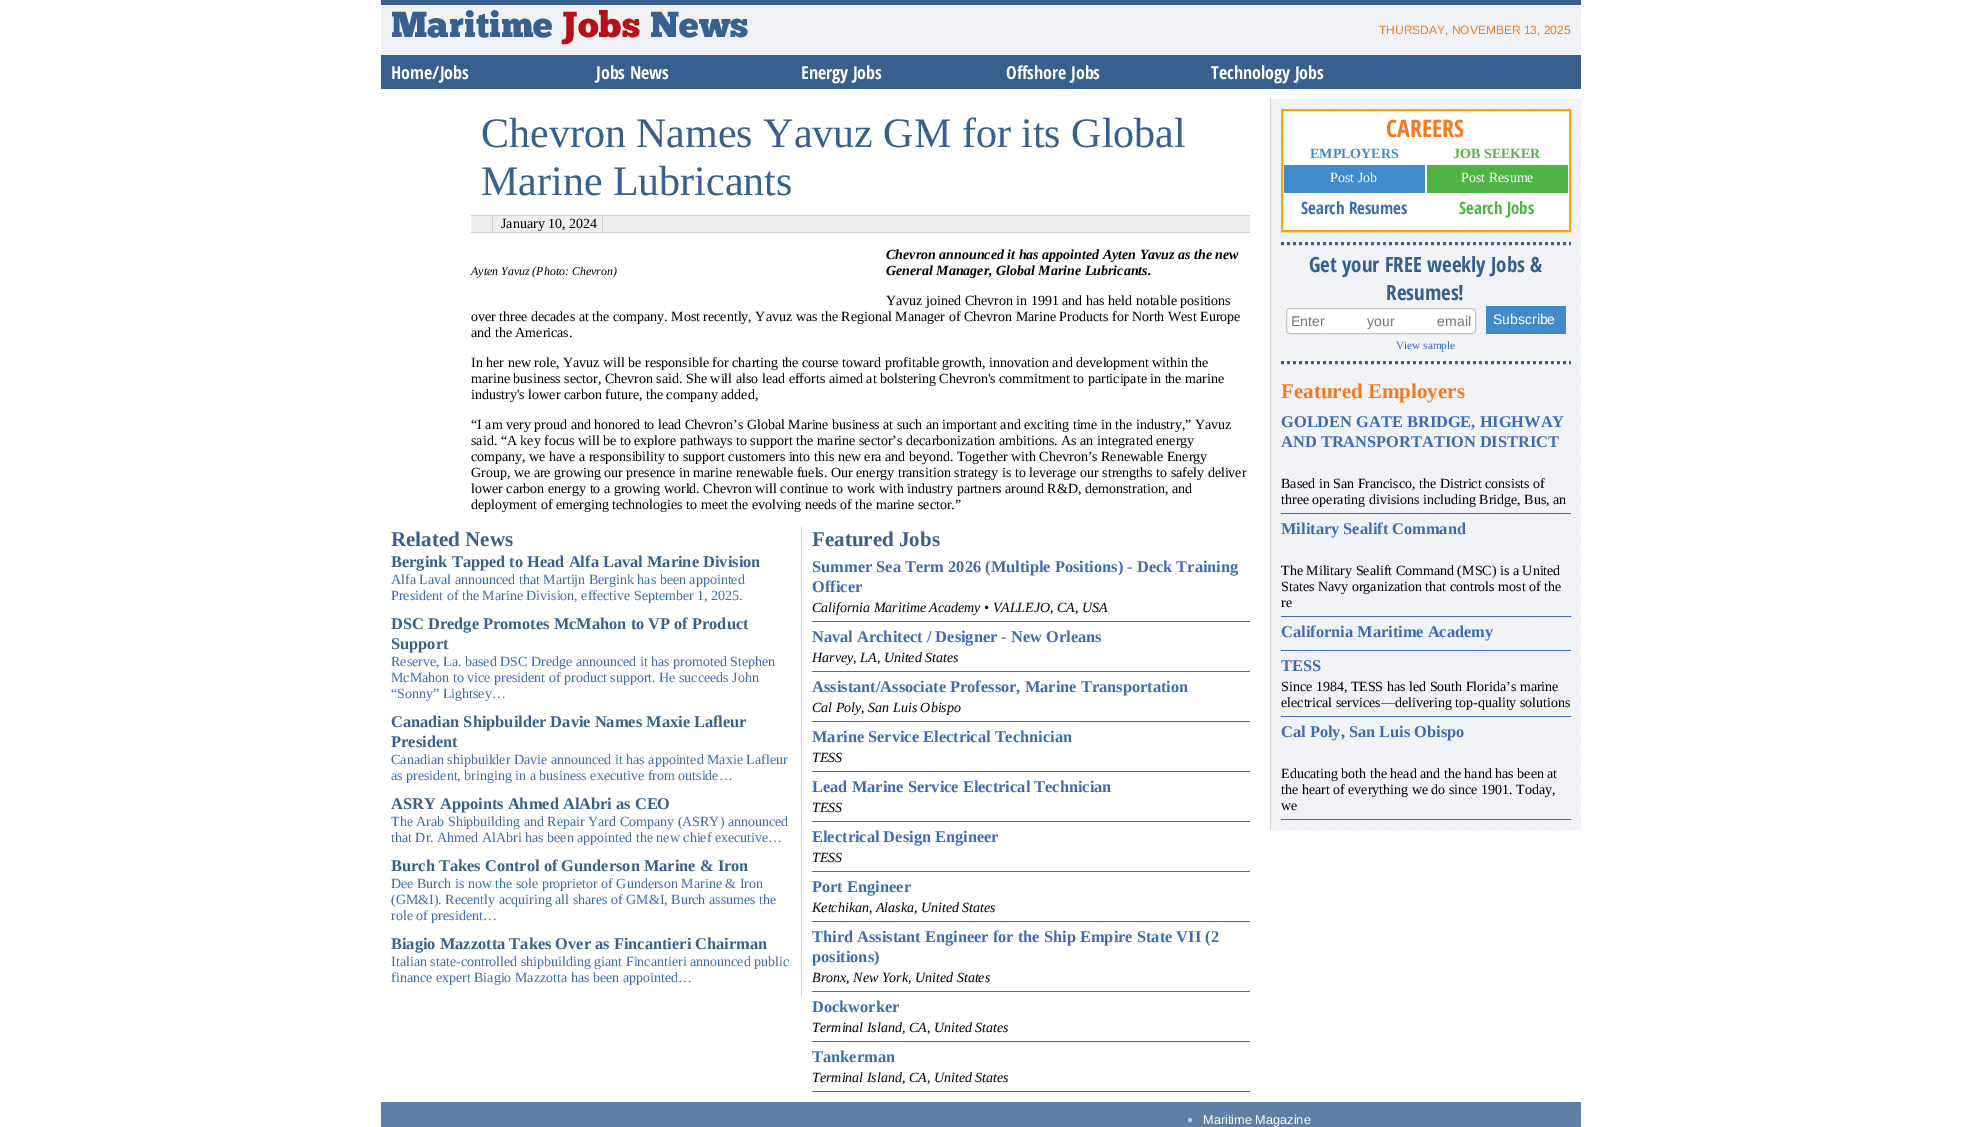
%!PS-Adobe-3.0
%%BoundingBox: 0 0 1961 1127
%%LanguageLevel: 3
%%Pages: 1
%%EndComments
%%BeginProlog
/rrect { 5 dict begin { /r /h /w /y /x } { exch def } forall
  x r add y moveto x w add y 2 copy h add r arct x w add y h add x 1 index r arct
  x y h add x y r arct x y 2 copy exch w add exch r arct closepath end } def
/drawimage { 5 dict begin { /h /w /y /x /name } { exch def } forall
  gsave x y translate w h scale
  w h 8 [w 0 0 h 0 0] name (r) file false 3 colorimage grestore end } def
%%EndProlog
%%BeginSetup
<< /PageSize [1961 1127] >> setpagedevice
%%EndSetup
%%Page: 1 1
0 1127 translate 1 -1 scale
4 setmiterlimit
1 setgray
0 0 1961 1127 rectfill
0.22 0.373 0.553 setrgbcolor
381 0 1200 5 rectfill
0.941 0.945 0.957 setrgbcolor
381 5 1200 50 rectfill
0.22 0.373 0.553 setrgbcolor
381 55 1200 34 rectfill
0.933 setgray
471 216 779 16 rectfill
0.808 setgray
471 215 779 1 rectfill
471 232 779 1 rectfill
492 216 1 16 rectfill
602 216 1 16 rectfill
0.827 setgray
801 527 1 469 rectfill
0.243 0.416 0.765 setrgbcolor
812 621 438 1 rectfill
812 671 438 1 rectfill
812 721 438 1 rectfill
812 771 438 1 rectfill
812 821 438 1 rectfill
812 871 438 1 rectfill
812 921 438 1 rectfill
812 991 438 1 rectfill
812 1041 438 1 rectfill
812 1091 438 1 rectfill
(images/1.raw) 1271 99 310 731 drawimage
0.827 setgray
1270 99 1 731 rectfill
1 setgray
newpath 1282 110 moveto 1570 110 lineto 1570 231 lineto 1282 231 lineto closepath gsave fill grestore
1 0.647 0 setrgbcolor
2 setlinewidth
stroke
0.259 0.545 0.792 setrgbcolor
1284 165 141 28 rectfill
0.314 0.702 0.275 setrgbcolor
1427 165 141 28 rectfill
0.22 0.373 0.553 setrgbcolor
3 setlinewidth
[3 3] 0 setdash
newpath 1281 243.5 moveto 1571 243.5 lineto stroke
newpath 1281 362.5 moveto 1571 362.5 lineto stroke
1 setgray
1286.5 308.5 189 25 3.5 rrect gsave fill grestore
0.773 setgray
1 setlinewidth
[] 0 setdash
stroke
0.259 0.545 0.792 setrgbcolor
1486 306 80 28 rectfill
0.243 0.416 0.765 setrgbcolor
1281 513 290 1 rectfill
1281 616 290 1 rectfill
1281 650 290 1 rectfill
1281 716 290 1 rectfill
1281 819 290 1 rectfill
0.376 0.498 0.643 setrgbcolor
381 1102 1200 25 rectfill
0.702 0.808 1 setrgbcolor
newpath 1190 1120 2 0 360 arc closepath fill
/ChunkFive-Regular [36 0 0 -36 0 0] selectfont
0.22 0.373 0.553 setrgbcolor
391 37 moveto (Maritime) show
0.71 0.067 0.106 setrgbcolor
561 37 moveto (Jobs) show
0.22 0.373 0.553 setrgbcolor
650 37 moveto (News) show
/LiberationSans-Regular [12 0 0 -12 0 0] selectfont
0.957 0.478 0.125 setrgbcolor
1379 34 moveto (THURSDAY, NOVEMBER 13, 2025) show
/OpenSansCondensed-Bold [18 0 0 -18 0 0] selectfont
1 setgray
391 79 moveto (Home/Jobs) show
596 79 moveto (Jobs News) show
801 79 moveto (Energy Jobs) show
1006 79 moveto (Offshore Jobs) show
1211 79 moveto (Technology Jobs) show
/LiberationSerif-Regular [42 0 0 -42 0 0] selectfont
0.22 0.373 0.553 setrgbcolor
481 147 moveto (Chevron Names Yavuz GM for its Global) show
481 195 moveto (Marine Lubricants) show
/LiberationSerif-Regular [14 0 0 -14 0 0] selectfont
0 setgray
501 228 moveto (January 10, 2024) show
/LiberationSerif-BoldItalic [14 0 0 -14 0 0] selectfont
886 259 moveto (Chevron announced it has appointed Ayten Yavuz as the new) show
886 275 moveto (General Manager, Global Marine Lubricants.) show
/LiberationSerif-Regular [14 0 0 -14 0 0] selectfont
886 305 moveto (Yavuz joined Chevron in 1991 and has held notable positions) show
471 321 moveto (over three decades at the company. Most recently, Yavuz was the Regional Manager of Chevron Marine Products for North West Europe) show
471 337 moveto (and the Americas.) show
471 367 moveto (In her new role, Yavuz will be responsible for charting the course toward profitable growth, innovation and development within the) show
471 383 moveto (marine business sector, Chevron said. She will also lead efforts aimed at bolstering Chevron's commitment to participate in the marine) show
471 399 moveto (industry's lower carbon future, the company added,) show
471 429 moveto (“I am very proud and honored to lead Chevron’s Global Marine business at such an important and exciting time in the industry,” Yavuz) show
471 445 moveto (said. “A key focus will be to explore pathways to support the marine sector’s decarbonization ambitions. As an integrated energy) show
471 461 moveto (company, we have a responsibility to support customers into this new era and beyond. Together with Chevron’s Renewable Energy) show
471 477 moveto (Group, we are growing our presence in marine renewable fuels. Our energy transition strategy is to leverage our strengths to safely deliver) show
471 493 moveto (lower carbon energy to a growing world. Chevron will continue to work with industry partners around R&D, demonstration, and) show
471 509 moveto (deployment of emerging technologies to meet the evolving needs of the marine sector.”) show
/LiberationSerif-Italic [11.9 0 0 -11.9 0 0] selectfont
471 275 moveto (Ayten Yavuz \(Photo: Chevron\)) show
/LiberationSerif-Bold [21 0 0 -21 0 0] selectfont
0.22 0.373 0.553 setrgbcolor
391 546 moveto (Related News) show
/LiberationSerif-Bold [16.4 0 0 -16.4 0 0] selectfont
391 567 moveto (Bergink Tapped to Head Alfa Laval Marine Division) show
/LiberationSerif-Regular [14 0 0 -14 0 0] selectfont
0.243 0.416 0.702 setrgbcolor
391 584 moveto (Alfa Laval announced that Martijn Bergink has been appointed) show
391 600 moveto (President of the Marine Division, effective September 1, 2025.) show
/LiberationSerif-Bold [16.4 0 0 -16.4 0 0] selectfont
0.22 0.373 0.553 setrgbcolor
391 629 moveto (DSC Dredge Promotes McMahon to VP of Product) show
391 649 moveto (Support) show
/LiberationSerif-Regular [14 0 0 -14 0 0] selectfont
0.243 0.416 0.702 setrgbcolor
391 666 moveto (Reserve, La. based DSC Dredge announced it has promoted Stephen) show
391 682 moveto (McMahon to vice president of product support. He succeeds John) show
391 698 moveto (“Sonny” Lightsey…) show
/LiberationSerif-Bold [16.4 0 0 -16.4 0 0] selectfont
0.22 0.373 0.553 setrgbcolor
391 727 moveto (Canadian Shipbuilder Davie Names Maxie Lafleur) show
391 747 moveto (President) show
/LiberationSerif-Regular [14 0 0 -14 0 0] selectfont
0.243 0.416 0.702 setrgbcolor
391 764 moveto (Canadian shipbuilder Davie announced it has appointed Maxie Lafleur) show
391 780 moveto (as president, bringing in a business executive from outside…) show
/LiberationSerif-Bold [16.4 0 0 -16.4 0 0] selectfont
0.22 0.373 0.553 setrgbcolor
391 809 moveto (ASRY Appoints Ahmed AlAbri as CEO) show
/LiberationSerif-Regular [14 0 0 -14 0 0] selectfont
0.243 0.416 0.702 setrgbcolor
391 826 moveto (The Arab Shipbuilding and Repair Yard Company \(ASRY\) announced) show
391 842 moveto (that Dr. Ahmed AlAbri has been appointed the new chief executive…) show
/LiberationSerif-Bold [16.4 0 0 -16.4 0 0] selectfont
0.22 0.373 0.553 setrgbcolor
391 871 moveto (Burch Takes Control of Gunderson Marine & Iron) show
/LiberationSerif-Regular [14 0 0 -14 0 0] selectfont
0.243 0.416 0.702 setrgbcolor
391 888 moveto (Dee Burch is now the sole proprietor of Gunderson Marine & Iron) show
391 904 moveto (\(GM&I\). Recently acquiring all shares of GM&I, Burch assumes the) show
391 920 moveto (role of president…) show
/LiberationSerif-Bold [16.4 0 0 -16.4 0 0] selectfont
0.22 0.373 0.553 setrgbcolor
391 949 moveto (Biagio Mazzotta Takes Over as Fincantieri Chairman) show
/LiberationSerif-Regular [14 0 0 -14 0 0] selectfont
0.243 0.416 0.702 setrgbcolor
391 966 moveto (Italian state-controlled shipbuilding giant Fincantieri announced public) show
391 982 moveto (finance expert Biagio Mazzotta has been appointed…) show
/LiberationSerif-Bold [21 0 0 -21 0 0] selectfont
0.22 0.373 0.553 setrgbcolor
812 546 moveto (Featured Jobs) show
/LiberationSerif-Bold [16.4 0 0 -16.4 0 0] selectfont
0.243 0.416 0.702 setrgbcolor
812 572 moveto (Summer Sea Term 2026 \(Multiple Positions\) - Deck Training) show
812 592 moveto (Officer) show
/LiberationSerif-Italic [14 0 0 -14 0 0] selectfont
0 setgray
812 612 moveto (California Maritime Academy • VALLEJO, CA, USA) show
/LiberationSerif-Bold [16.4 0 0 -16.4 0 0] selectfont
0.243 0.416 0.702 setrgbcolor
812 642 moveto (Naval Architect / Designer - New Orleans) show
/LiberationSerif-Italic [14 0 0 -14 0 0] selectfont
0 setgray
812 662 moveto (Harvey, LA, United States) show
/LiberationSerif-Bold [16.4 0 0 -16.4 0 0] selectfont
0.243 0.416 0.702 setrgbcolor
812 692 moveto (Assistant/Associate Professor, Marine Transportation) show
/LiberationSerif-Italic [14 0 0 -14 0 0] selectfont
0 setgray
812 712 moveto (Cal Poly, San Luis Obispo) show
/LiberationSerif-Bold [16.4 0 0 -16.4 0 0] selectfont
0.243 0.416 0.702 setrgbcolor
812 742 moveto (Marine Service Electrical Technician) show
/LiberationSerif-Italic [14 0 0 -14 0 0] selectfont
0 setgray
812 762 moveto (TESS) show
/LiberationSerif-Bold [16.4 0 0 -16.4 0 0] selectfont
0.243 0.416 0.702 setrgbcolor
812 792 moveto (Lead Marine Service Electrical Technician) show
/LiberationSerif-Italic [14 0 0 -14 0 0] selectfont
0 setgray
812 812 moveto (TESS) show
/LiberationSerif-Bold [16.4 0 0 -16.4 0 0] selectfont
0.243 0.416 0.702 setrgbcolor
812 842 moveto (Electrical Design Engineer) show
/LiberationSerif-Italic [14 0 0 -14 0 0] selectfont
0 setgray
812 862 moveto (TESS) show
/LiberationSerif-Bold [16.4 0 0 -16.4 0 0] selectfont
0.243 0.416 0.702 setrgbcolor
812 892 moveto (Port Engineer) show
/LiberationSerif-Italic [14 0 0 -14 0 0] selectfont
0 setgray
812 912 moveto (Ketchikan, Alaska, United States) show
gsave
812 527 438 565 rectclip
/LiberationSerif-Bold [16.4 0 0 -16.4 0 0] selectfont
0.243 0.416 0.702 setrgbcolor
812 942 moveto (Third Assistant Engineer for the Ship Empire State VII \(2) show
grestore
/LiberationSerif-Bold [16.4 0 0 -16.4 0 0] selectfont
0.243 0.416 0.702 setrgbcolor
812 962 moveto (positions\)) show
/LiberationSerif-Italic [14 0 0 -14 0 0] selectfont
0 setgray
812 982 moveto (Bronx, New York, United States) show
/LiberationSerif-Bold [16.4 0 0 -16.4 0 0] selectfont
0.243 0.416 0.702 setrgbcolor
812 1012 moveto (Dockworker) show
/LiberationSerif-Italic [14 0 0 -14 0 0] selectfont
0 setgray
812 1032 moveto (Terminal Island, CA, United States) show
gsave
812 527 438 565 rectclip
/LiberationSerif-Bold [16.4 0 0 -16.4 0 0] selectfont
0.243 0.416 0.702 setrgbcolor
812 1062 moveto (Tankerman) show
grestore
812 1082 moveto (Terminal Island, CA, United States) show
/OpenSansCondensed-Bold [24 0 0 -24 0 0] selectfont
0.957 0.478 0.125 setrgbcolor
1386 137 moveto (CAREERS) show
/LiberationSerif-Bold [14 0 0 -14 0 0] selectfont
0.259 0.545 0.792 setrgbcolor
1310 158 moveto (EMPLOYERS) show
/LiberationSerif-Regular [14 0 0 -14 0 0] selectfont
1 setgray
1330 182 moveto (Post Job) show
/OpenSansCondensed-Bold [17 0 0 -17 0 0] selectfont
0.243 0.416 0.702 setrgbcolor
1301 214 moveto (Search Resumes) show
/LiberationSerif-Bold [14 0 0 -14 0 0] selectfont
0.314 0.702 0.275 setrgbcolor
1453 158 moveto (JOB SEEKER) show
/LiberationSerif-Regular [14 0 0 -14 0 0] selectfont
1 setgray
1461 182 moveto (Post Resume) show
/OpenSansCondensed-Bold [17 0 0 -17 0 0] selectfont
0.314 0.702 0.275 setrgbcolor
1459 214 moveto (Search Jobs) show
/OpenSansCondensed-Bold [21 0 0 -21 0 0] selectfont
0.22 0.373 0.553 setrgbcolor
1309 272 moveto (Get your FREE weekly Jobs &) show
1386 300 moveto (Resumes!) show
/LiberationSans-Regular [14 0 0 -14 0 0] selectfont
0.459 setgray
1291 326 moveto 39 0 32 (Enter your email) widthshow
1 setgray
1493 324 moveto (Subscribe) show
/LiberationSerif-Regular [11.25 0 0 -11.25 0 0] selectfont
0.243 0.416 0.702 setrgbcolor
1396 349 moveto (View sample) show
/LiberationSerif-Bold [21 0 0 -21 0 0] selectfont
0.957 0.478 0.125 setrgbcolor
1281 398 moveto (Featured Employers) show
/LiberationSerif-Bold [16.4 0 0 -16.4 0 0] selectfont
0.243 0.416 0.702 setrgbcolor
1281 427 moveto (GOLDEN GATE BRIDGE, HIGHWAY) show
1281 447 moveto (AND TRANSPORTATION DISTRICT) show
/LiberationSerif-Regular [14 0 0 -14 0 0] selectfont
0 setgray
1281 488 moveto (Based in San Francisco, the District consists of) show
1281 504 moveto (three operating divisions including Bridge, Bus, an) show
/LiberationSerif-Bold [16.4 0 0 -16.4 0 0] selectfont
0.243 0.416 0.702 setrgbcolor
1281 534 moveto (Military Sealift Command) show
/LiberationSerif-Regular [14 0 0 -14 0 0] selectfont
0 setgray
1281 575 moveto (The Military Sealift Command \(MSC\) is a United) show
1281 591 moveto (States Navy organization that controls most of the) show
1281 607 moveto (re) show
/LiberationSerif-Bold [16.4 0 0 -16.4 0 0] selectfont
0.243 0.416 0.702 setrgbcolor
1281 637 moveto (California Maritime Academy) show
gsave
1281 374 290 446 rectclip
1281 671 moveto (TESS) show
grestore
/LiberationSerif-Regular [14 0 0 -14 0 0] selectfont
0 setgray
1281 691 moveto (Since 1984, TESS has led South Florida’s marine) show
1281 707 moveto (electrical services—delivering top-quality solutions) show
/LiberationSerif-Bold [16.4 0 0 -16.4 0 0] selectfont
0.243 0.416 0.702 setrgbcolor
1281 737 moveto (Cal Poly, San Luis Obispo) show
/LiberationSerif-Regular [14 0 0 -14 0 0] selectfont
0 setgray
1281 778 moveto (Educating both the head and the hand has been at) show
1281 794 moveto (the heart of everything we do since 1901. Today,) show
1281 810 moveto (we) show
/LiberationSans-Regular [12.75 0 0 -12.75 0 0] selectfont
1 setgray
1203 1124 moveto (Maritime Magazine) show
showpage
%%EOF
